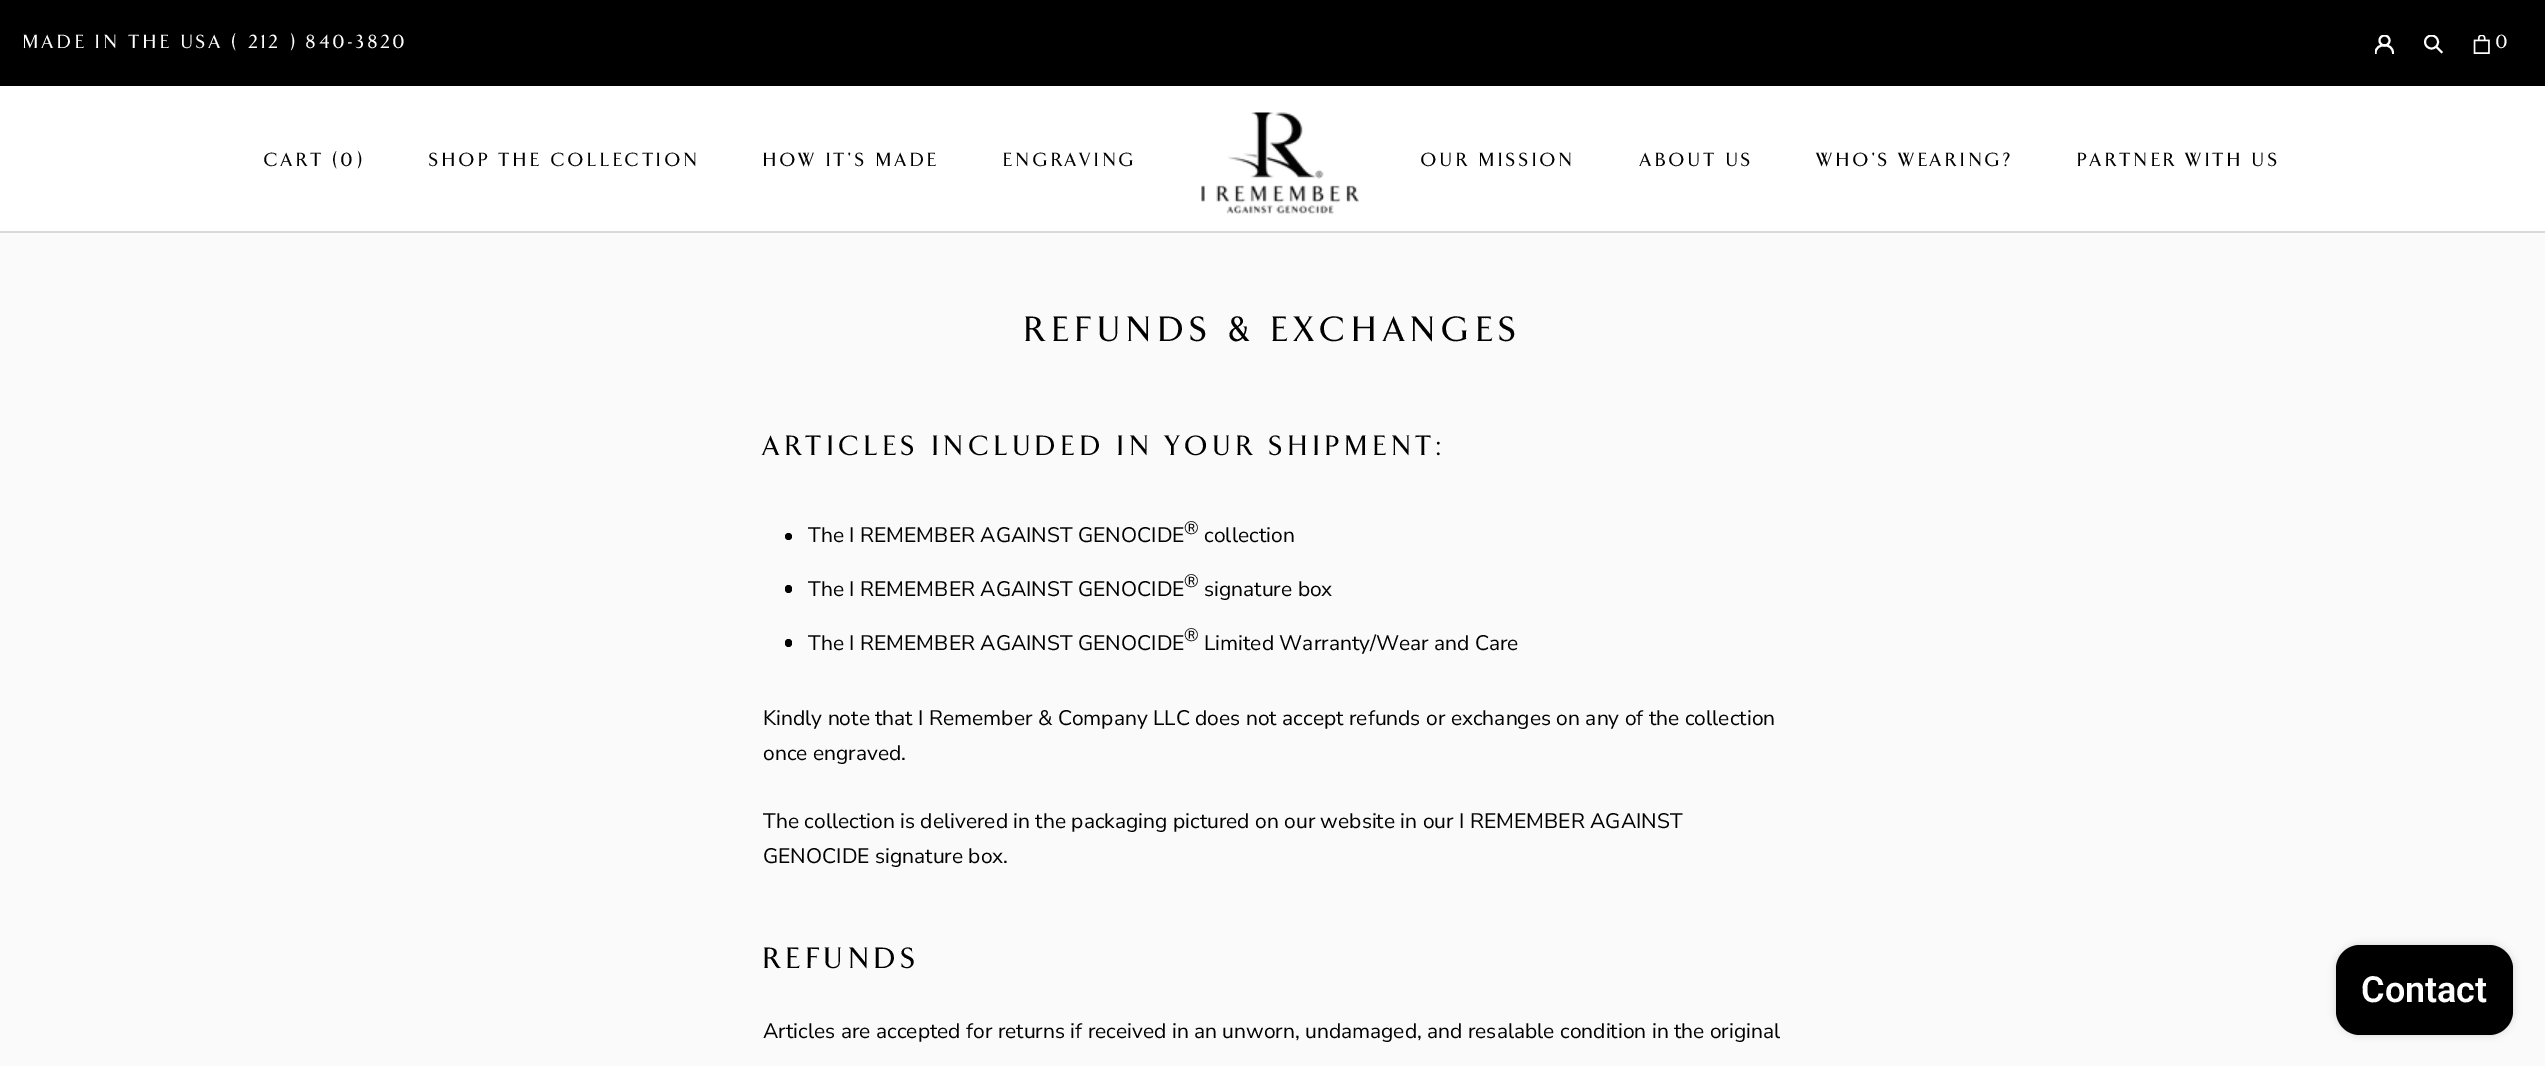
%!PS-Adobe-3.0
%%BoundingBox: 0 0 2545 1066
%%LanguageLevel: 3
%%Pages: 1
%%EndComments
%%BeginProlog
/setalpha { dup .setfillconstantalpha .setstrokeconstantalpha } def
/rrect { 5 dict begin { /r /h /w /y /x } { exch def } forall
  x r add y moveto x w add y 2 copy h add r arct x w add y h add x 1 index r arct
  x y h add x y r arct x y 2 copy exch w add exch r arct closepath end } def
/softshadow { 12 dict begin { /a /b /q /h /w /y /x } { exch def } forall gsave /was 0 def
  9 -2 -9 { dup b mul 4 div /e exch def 1 sub .425 mul 2.718 exch exp 1 add a .99 .min exch div /now exch def
    1 1 now sub 1 was sub div sub setalpha /was now def
    w h .min e 2 mul add 0 gt { x e sub y e sub w e 2 mul add h e 2 mul add
      q e add b .6 mul add w h .min 2 div e add .min 0 .max rrect fill } if } for grestore end } def
/drawimage { 5 dict begin { /h /w /y /x /name } { exch def } forall
  gsave x y translate w h scale
  w h 8 [w 0 0 h 0 0] name (r) file false 3 colorimage grestore end } def
%%EndProlog
%%BeginSetup
<< /PageSize [2545 1066] /PageUsesTransparency true >> setpagedevice
%%EndSetup
%%Page: 1 1
0 .pushpdf14devicefilter
0 1066 translate 1 -1 scale
4 setmiterlimit
0.98 setgray
0 0 2545 1066 rectfill
0 setgray
0 0 2545 86 rectfill
gsave
2375 35 19 19 rectclip
1 setgray
2 setlinewidth
2 setlinecap
newpath 2375.5 53 moveto 2375.5 42.5 2393 42.5 2393 53 curveto stroke
0 setlinecap
newpath 2384.5 40.5 5 0 360 arc closepath stroke
grestore
1 setgray
1.9 setlinewidth
2 setlinecap
newpath 2441.5 52 moveto 2436.5 47 lineto stroke
gsave
2424 35 20 19 rectclip
0 setlinecap
newpath 2431.5 42 6.5 0 360 arc closepath stroke
grestore
(images/1.raw) 2473 35 17 19 drawimage
0 86 2545 145 rectfill
0.851 setgray
0 231 2545 2 rectfill
(images/2.raw) 1201 112 158 103 drawimage
0 setgray
newpath 788.5 536.5 3.5 0 360 arc closepath fill
785 585 7 8 3.5 rrect fill
785 639 7 8 3.5 rrect fill
2336 945 177 90 24 4 0.15 softshadow
2336 945 177 90 24 rrect fill
/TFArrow-Medium [19.5 0 0 -19.5 0 0] selectfont
1 setgray
23 48 moveto 3.9 0 (MADE IN THE USA \( 212 \) 840-3820) ashow
2496 48 moveto 3.9 0 (0) ashow
0 setgray
264 166 moveto 3.9 0 (CART \(0\)) ashow
429 166 moveto 3.9 0 (SHOP THE COLLECTION) ashow
763 166 moveto 3.9 0 (HOW IT'S MADE) ashow
1003 166 moveto 3.9 0 (ENGRAVING) ashow
1421 166 moveto 3.9 0 (OUR MISSION) ashow
1640 166 moveto 3.9 0 (ABOUT US) ashow
1817 166 moveto 3.9 0 (WHO'S WEARING?) ashow
2077 166 moveto 3.9 0 (PARTNER WITH US) ashow
/TFArrow-Medium [36 0 0 -36 0 0] selectfont
1024 341 moveto 7.25 0 (REFUNDS & EXCHANGES) ashow
/TFArrow-Medium [28.5 0 0 -28.5 0 0] selectfont
763 455 moveto 5.7 0 (ARTICLES INCLUDED IN YOUR SHIPMENT:) ashow
/NunitoSans-Regular [21 0 0 -21 0 0] selectfont
808 542 moveto (The I REMEMBER AGAINST GENOCIDE) show
/NunitoSans-Regular [18 0 0 -18 0 0] selectfont
1184 534 moveto (®) show
/NunitoSans-Regular [21 0 0 -21 0 0] selectfont
1204 542 moveto (collection) show
808 596 moveto (The I REMEMBER AGAINST GENOCIDE) show
/NunitoSans-Regular [18 0 0 -18 0 0] selectfont
1184 587 moveto (®) show
/NunitoSans-Regular [21 0 0 -21 0 0] selectfont
1204 596 moveto (signature box) show
808 650 moveto (The I REMEMBER AGAINST GENOCIDE) show
/NunitoSans-Regular [18 0 0 -18 0 0] selectfont
1184 641 moveto (®) show
/NunitoSans-Regular [21 0 0 -21 0 0] selectfont
1204 650 moveto (Limited Warranty/Wear and Care) show
763 725 moveto (Kindly note that I Remember & Company LLC does not accept refunds or exchanges on any of the collection) show
763 760 moveto (once engraved.) show
763 828 moveto (The collection is delivered in the packaging pictured on our website in our I REMEMBER AGAINST) show
763 863 moveto (GENOCIDE signature box.) show
/TFArrow-Medium [30 0 0 -30 0 0] selectfont
763 968 moveto 6 0 (REFUNDS) ashow
/NunitoSans-Regular [21 0 0 -21 0 0] selectfont
763 1038 moveto (Articles are accepted for returns if received in an unworn, undamaged, and resalable condition in the original) show
/Roboto-SemiBold [36 0 0 -36 0 0] selectfont
1 setgray
2361 1002 moveto (Contact) show
.poppdf14devicefilter showpage
%%EOF
